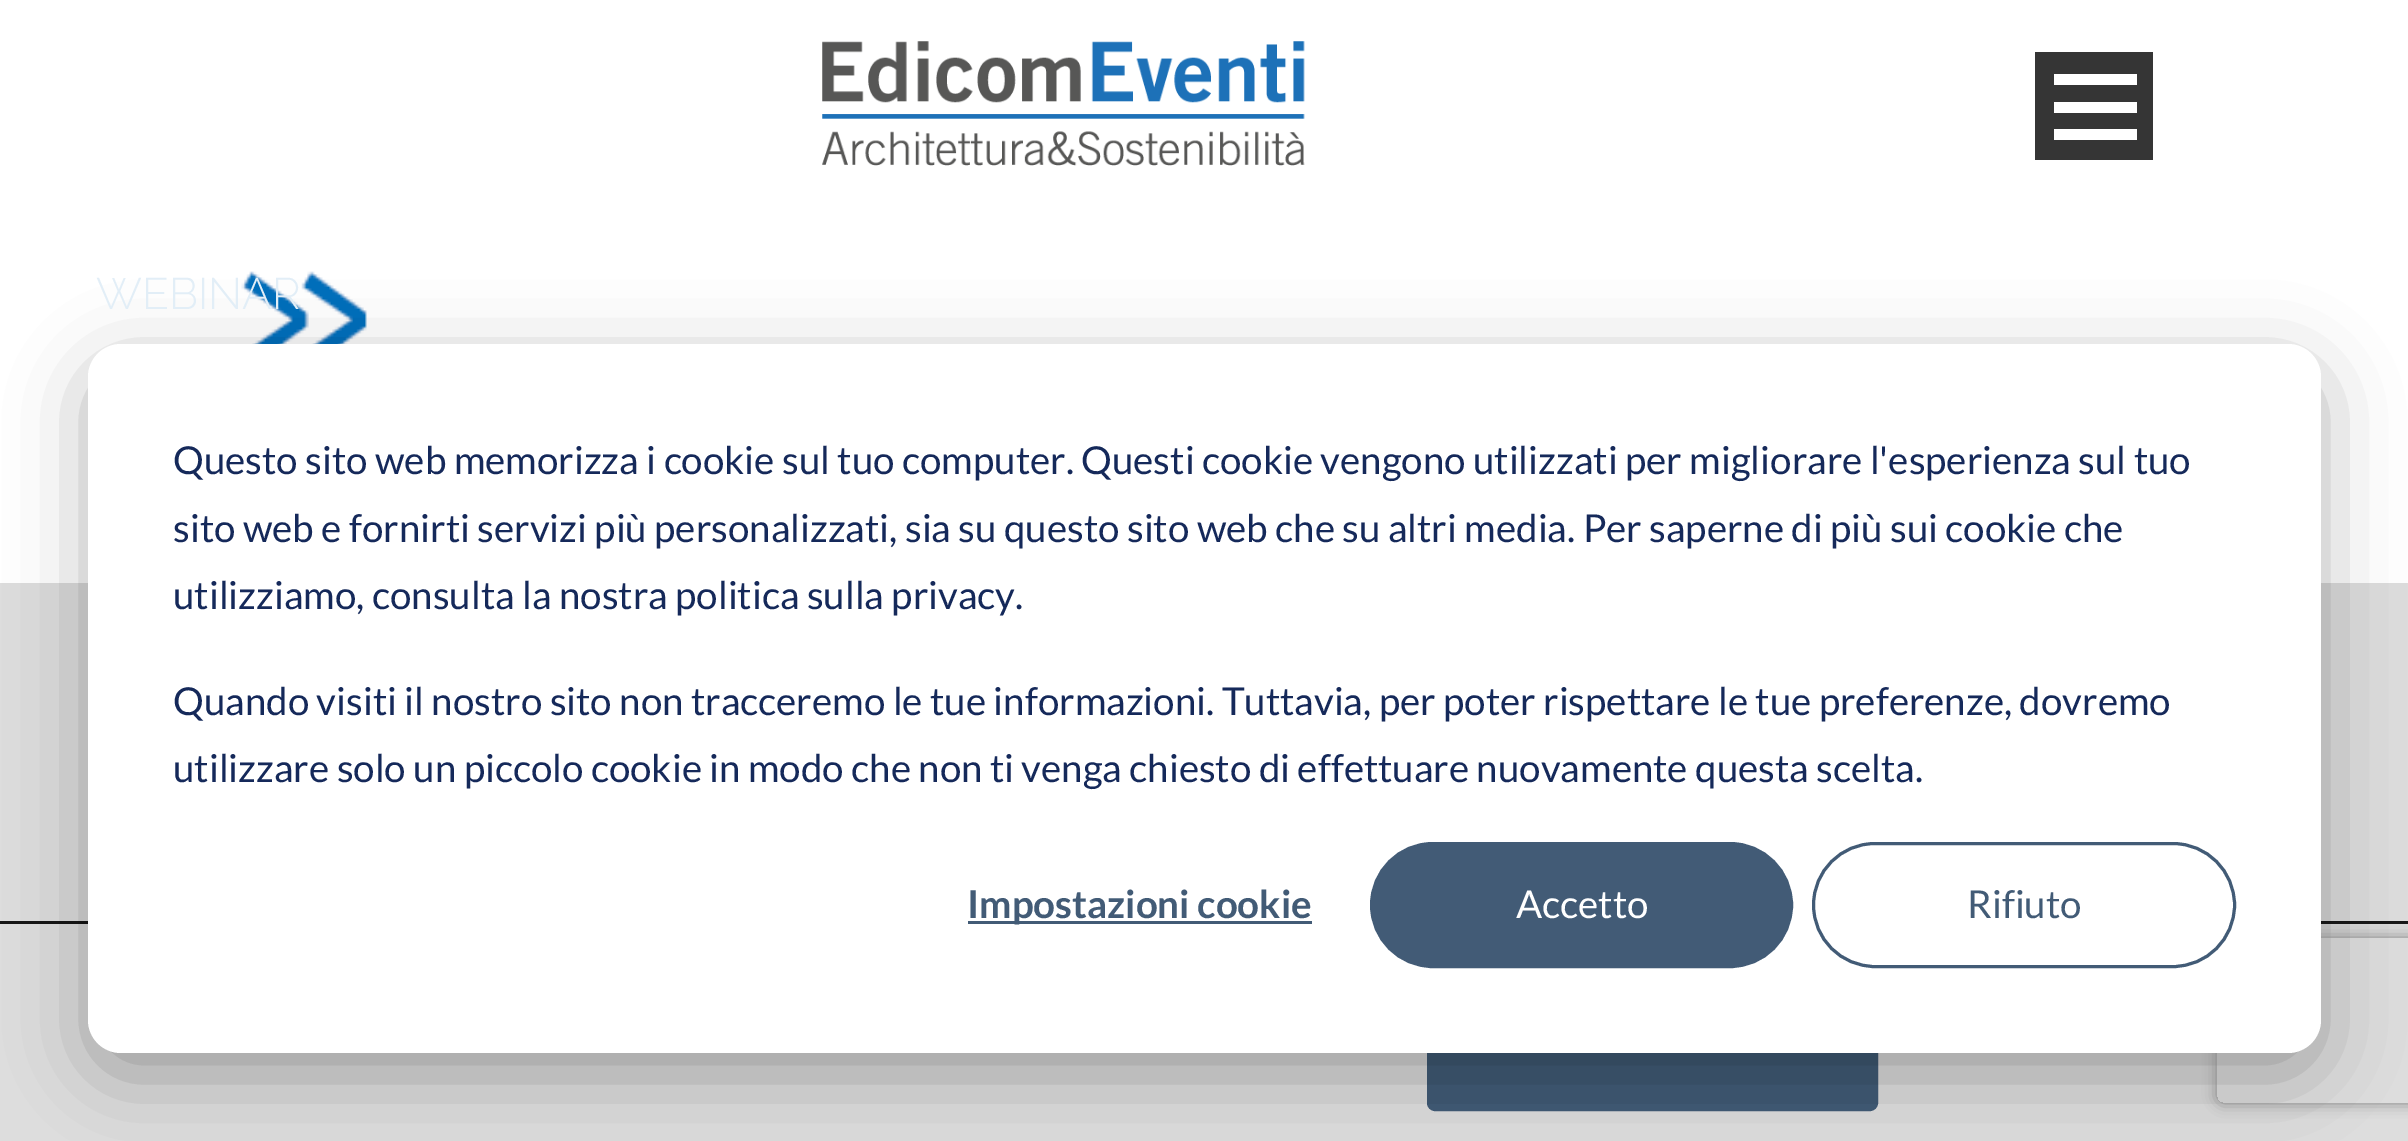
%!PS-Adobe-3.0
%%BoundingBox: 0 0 2408 1141
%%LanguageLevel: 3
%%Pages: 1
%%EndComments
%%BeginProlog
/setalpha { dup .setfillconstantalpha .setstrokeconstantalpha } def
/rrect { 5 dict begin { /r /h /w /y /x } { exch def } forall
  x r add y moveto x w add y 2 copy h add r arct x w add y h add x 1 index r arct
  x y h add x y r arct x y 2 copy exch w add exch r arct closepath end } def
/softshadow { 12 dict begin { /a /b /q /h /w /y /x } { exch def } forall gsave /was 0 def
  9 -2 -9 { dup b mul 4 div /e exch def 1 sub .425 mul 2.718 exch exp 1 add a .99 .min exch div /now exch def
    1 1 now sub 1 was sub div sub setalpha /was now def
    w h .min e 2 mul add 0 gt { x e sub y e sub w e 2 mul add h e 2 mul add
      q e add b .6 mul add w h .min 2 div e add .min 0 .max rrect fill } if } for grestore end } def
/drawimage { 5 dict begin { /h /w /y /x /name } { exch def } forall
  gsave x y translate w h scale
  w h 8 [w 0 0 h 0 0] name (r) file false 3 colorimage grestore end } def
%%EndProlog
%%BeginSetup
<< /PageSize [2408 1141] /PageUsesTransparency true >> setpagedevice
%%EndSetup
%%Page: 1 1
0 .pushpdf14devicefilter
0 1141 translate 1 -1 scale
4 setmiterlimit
1 setgray
0 0 2408 1141 rectfill
(images/1.raw) 822 41 483 125 drawimage
0.208 setgray
2035 52 118 108 rectfill
1 setgray
2054 129 83 11 rectfill
2054 102 83 11 rectfill
2054 74 83 11 rectfill
(images/2.raw) 241 271 126 73 drawimage
0.867 setgray
0 583 2408 558 rectfill
0.086 setgray
0 921 2408 3 rectfill
0.259 0.357 0.463 setrgbcolor
1428.5 994.5 448 115 6.5 rrect gsave fill grestore
3 setlinewidth
stroke
0 setgray
88 366 2233 709 33 38.5 0.28 softshadow
gsave
newpath 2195 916 moveto 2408 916 lineto 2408 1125 lineto 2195 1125 lineto closepath 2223 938 moveto 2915 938 lineto 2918.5 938 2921 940.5 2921 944 curveto 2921 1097 lineto 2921 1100.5 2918.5 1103 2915 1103 curveto 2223 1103 lineto 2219.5 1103 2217 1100.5 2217 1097 curveto 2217 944 lineto 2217 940.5 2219.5 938 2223 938 curveto closepath eoclip newpath
0.502 setgray
2217 938 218 165 6 7 1 softshadow
grestore
1 setgray
88 344 2233 709 33 rrect fill
0.259 0.357 0.463 setrgbcolor
968 921 344 3 rectfill
1371.5 843.5 420 123 61.5 rrect gsave fill grestore
stroke
1813.5 843.5 421 123 61.5 rrect stroke
/Raleway-Light [44 0 0 -44 0 0] selectfont
0.886 0.933 0.969 setrgbcolor
96 309 moveto (WEBINAR) show
/Lato-Regular [38.5 0 0 -38.5 0 0] selectfont
0.082 0.161 0.353 setrgbcolor
173 474 moveto (Questo sito web memorizza i cookie sul tuo computer. Questi cookie vengono utilizzati per migliorare l'esperienza sul tuo) show
173 542 moveto (sito web e fornirti servizi più personalizzati, sia su questo sito web che su altri media. Per saperne di più sui cookie che) show
173 609 moveto (utilizziamo, consulta la nostra politica sulla privacy.) show
173 715 moveto (Quando visiti il nostro sito non tracceremo le tue informazioni. Tuttavia, per poter rispettare le tue preferenze, dovremo) show
173 782 moveto (utilizzare solo un piccolo cookie in modo che non ti venga chiesto di effettuare nuovamente questa scelta.) show
/Lato-Bold [38.5 0 0 -38.5 0 0] selectfont
0.259 0.357 0.463 setrgbcolor
967 918 moveto (Impostazioni cookie) show
/Lato-Regular [38.5 0 0 -38.5 0 0] selectfont
1 setgray
1516 918 moveto (Accetto) show
0.259 0.357 0.463 setrgbcolor
1967 918 moveto (Rifiuto) show
.poppdf14devicefilter showpage
%%EOF
